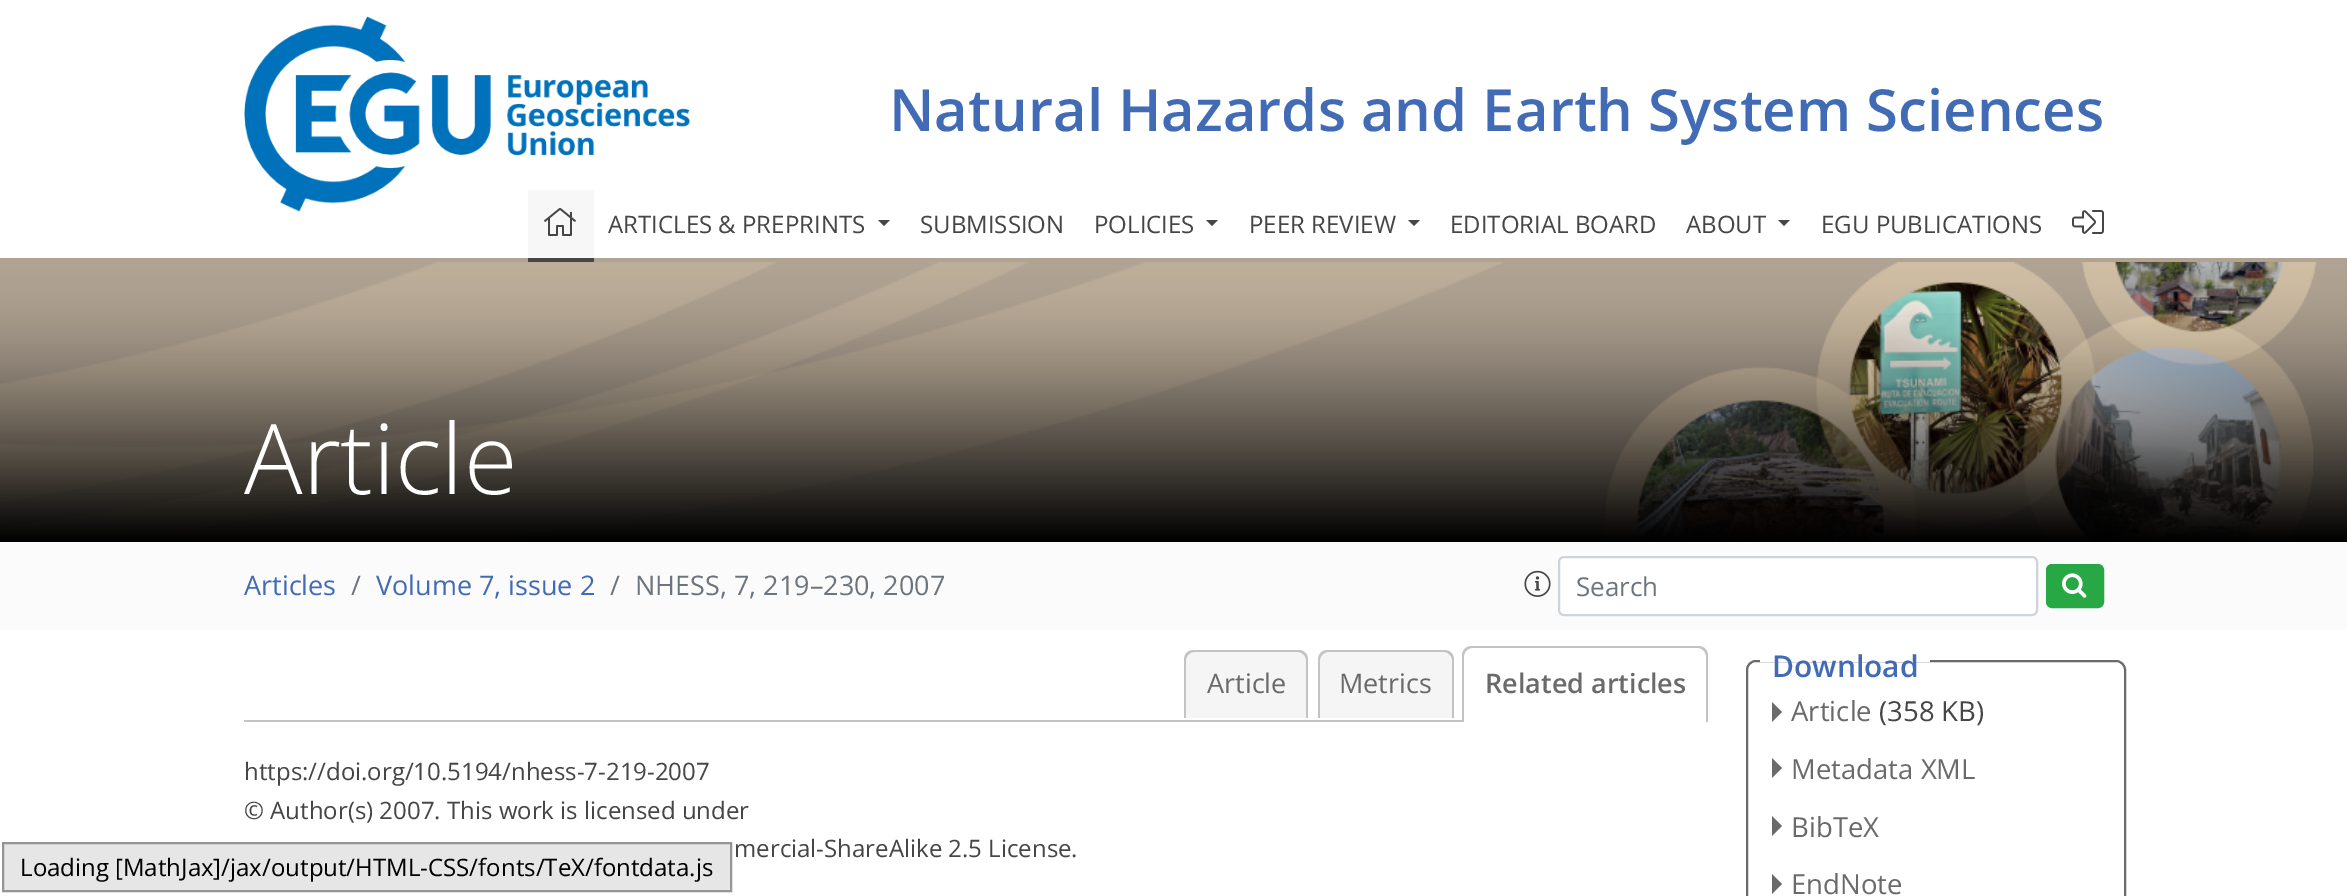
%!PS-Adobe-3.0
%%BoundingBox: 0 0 2347 896
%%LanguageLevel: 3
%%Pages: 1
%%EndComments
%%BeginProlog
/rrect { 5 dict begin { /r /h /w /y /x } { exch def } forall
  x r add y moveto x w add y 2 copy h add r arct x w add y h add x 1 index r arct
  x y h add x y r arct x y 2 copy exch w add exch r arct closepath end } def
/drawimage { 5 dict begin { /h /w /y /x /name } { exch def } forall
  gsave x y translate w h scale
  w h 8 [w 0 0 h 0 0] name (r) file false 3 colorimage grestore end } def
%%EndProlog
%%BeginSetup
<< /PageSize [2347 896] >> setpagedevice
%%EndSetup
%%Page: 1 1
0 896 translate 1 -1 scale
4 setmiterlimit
1 setgray
0 0 2347 896 rectfill
(images/1.raw) 244 16 446 196 drawimage
0.69 0.639 0.576 setrgbcolor
0 258 2347 4 rectfill
0.969 setgray
528 190 66 68 rectfill
0.275 setgray
528 258 66 4 rectfill
(images/2.raw) 544 208 32 28 drawimage
newpath 878 220 moveto 890 220 lineto 884 226 lineto closepath fill
newpath 1206 220 moveto 1218 220 lineto 1212 226 lineto closepath fill
newpath 1408 220 moveto 1420 220 lineto 1414 226 lineto closepath fill
newpath 1778 220 moveto 1790 220 lineto 1784 226 lineto closepath fill
(images/3.raw) 2072 210 32 24 drawimage
(images/4.raw) 0 262 2347 280 drawimage
0.984 setgray
0 542 2347 88 rectfill
(images/5.raw) 1524 570 27 27 drawimage
1 setgray
1559 557 478 58 5 rrect gsave fill grestore
0.808 0.831 0.855 setrgbcolor
2 setlinewidth
stroke
0.157 0.655 0.271 setrgbcolor
2047 565 56 42 5 rrect gsave fill grestore
stroke
(images/6.raw) 2062 573 25 25 drawimage
0.765 setgray
244 720 1218 2 rectfill
0.961 setgray
newpath 1194 650 moveto 1298 650 lineto 1303.5 650 1308 654.5 1308 660 curveto 1308 718 lineto 1184 718 lineto 1184 660 lineto 1184 654.5 1188.5 650 1194 650 curveto closepath fill
0.765 setgray
newpath 1194 650 moveto 1298 650 lineto 1304 650 1308 654 1308 660 curveto 1308 718 lineto 1184 718 lineto 1184 660 lineto 1184 654 1188 650 1194 650 curveto closepath 1194 652 moveto 1298 652 lineto 1302 652 1306 656 1306 660 curveto 1306 718 lineto 1186 718 lineto 1186 660 lineto 1186 656 1190 652 1194 652 curveto closepath eofill
0.961 setgray
newpath 1328 650 moveto 1444 650 lineto 1449.5 650 1454 654.5 1454 660 curveto 1454 718 lineto 1318 718 lineto 1318 660 lineto 1318 654.5 1322.5 650 1328 650 curveto closepath fill
0.765 setgray
newpath 1328 650 moveto 1444 650 lineto 1450 650 1454 654 1454 660 curveto 1454 718 lineto 1318 718 lineto 1318 660 lineto 1318 654 1322 650 1328 650 curveto closepath 1328 652 moveto 1444 652 lineto 1448 652 1452 656 1452 660 curveto 1452 718 lineto 1320 718 lineto 1320 660 lineto 1320 656 1324 652 1328 652 curveto closepath eofill
newpath 1472 646 moveto 1698 646 lineto 1704 646 1708 650 1708 656 curveto 1708 722 lineto 1462 722 lineto 1462 656 lineto 1462 650 1466 646 1472 646 curveto closepath 1472 648 moveto 1698 648 lineto 1702 648 1706 652 1706 656 curveto 1706 722 lineto 1464 722 lineto 1464 656 lineto 1464 652 1468 648 1472 648 curveto closepath eofill
0.416 setgray
1747 661 378 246 9 rrect stroke
1 setgray
1760 660 170 2 rectfill
0.416 setgray
newpath 1772 722 moveto 1772 702 lineto 1782 712 lineto closepath fill
newpath 1772 778 moveto 1772 758 lineto 1782 768 lineto closepath fill
newpath 1772 836 moveto 1772 816 lineto 1782 826 lineto closepath fill
newpath 1772 894 moveto 1772 874 lineto 1782 884 lineto closepath fill
0.902 setgray
newpath 3 843 moveto 731 843 lineto 731 891 lineto 3 891 lineto closepath gsave fill grestore
0.584 setgray
stroke
/OpenSans-SemiBold [58 0 0 -58 0 0] selectfont
0.255 0.42 0.706 setrgbcolor
889 131 moveto (Natural Hazards and Earth System Sciences) show
/OpenSans-Regular [24 0 0 -24 0 0] selectfont
0.275 setgray
608 233 moveto (ARTICLES & PREPRINTS) show
920 233 moveto (SUBMISSION) show
1094 233 moveto (POLICIES) show
1249 233 moveto (PEER REVIEW) show
1450 233 moveto (EDITORIAL BOARD) show
1686 233 moveto (ABOUT) show
1821 233 moveto (EGU PUBLICATIONS) show
/OpenSans-Light [97.5 0 0 -97.5 0 0] selectfont
1 setgray
244 494 moveto (Article) show
/OpenSans-Regular [27 0 0 -27 0 0] selectfont
0.255 0.42 0.706 setrgbcolor
244 595 moveto (Articles) show
0.424 0.459 0.49 setrgbcolor
351 595 moveto (/) show
0.255 0.42 0.706 setrgbcolor
376 595 moveto (Volume 7, issue 2) show
0.424 0.459 0.49 setrgbcolor
610 595 moveto (/) show
635 595 moveto (NHESS, 7, 219–230, 2007) show
/OpenSans-Regular [26 0 0 -26 0 0] selectfont
1576 596 moveto (Search) show
/OpenSans-Regular [27 0 0 -27 0 0] selectfont
0.416 setgray
1207 693 moveto (Article) show
1339 693 moveto (Metrics) show
/OpenSans-SemiBold [27 0 0 -27 0 0] selectfont
1485 693 moveto (Related articles) show
/OpenSans-Regular [24 0 0 -24 0 0] selectfont
0.275 setgray
244 780 moveto (https://doi.org/10.5194/nhess-7-219-2007) show
244 819 moveto (© Author\(s\) 2007. This work is licensed under) show
734 857 moveto (mercial-ShareAlike 2.5 License.) show
/OpenSans-SemiBold [30 0 0 -30 0 0] selectfont
0.255 0.42 0.706 setrgbcolor
1772 677 moveto (Download) show
/OpenSans-Regular [27.5 0 0 -27.5 0 0] selectfont
0.416 setgray
1791 721 moveto (Article) show
0.275 setgray
1879 721 moveto (\(358 KB\)) show
0.416 setgray
1791 779 moveto (Metadata XML) show
1791 837 moveto (BibTeX) show
1791 894 moveto (EndNote) show
/OpenSans-Regular [24 0 0 -24 0 0] selectfont
0 setgray
20 876 moveto (Loading [MathJax]/jax/output/HTML-CSS/fonts/TeX/fontdata.js) show
showpage
%%EOF
